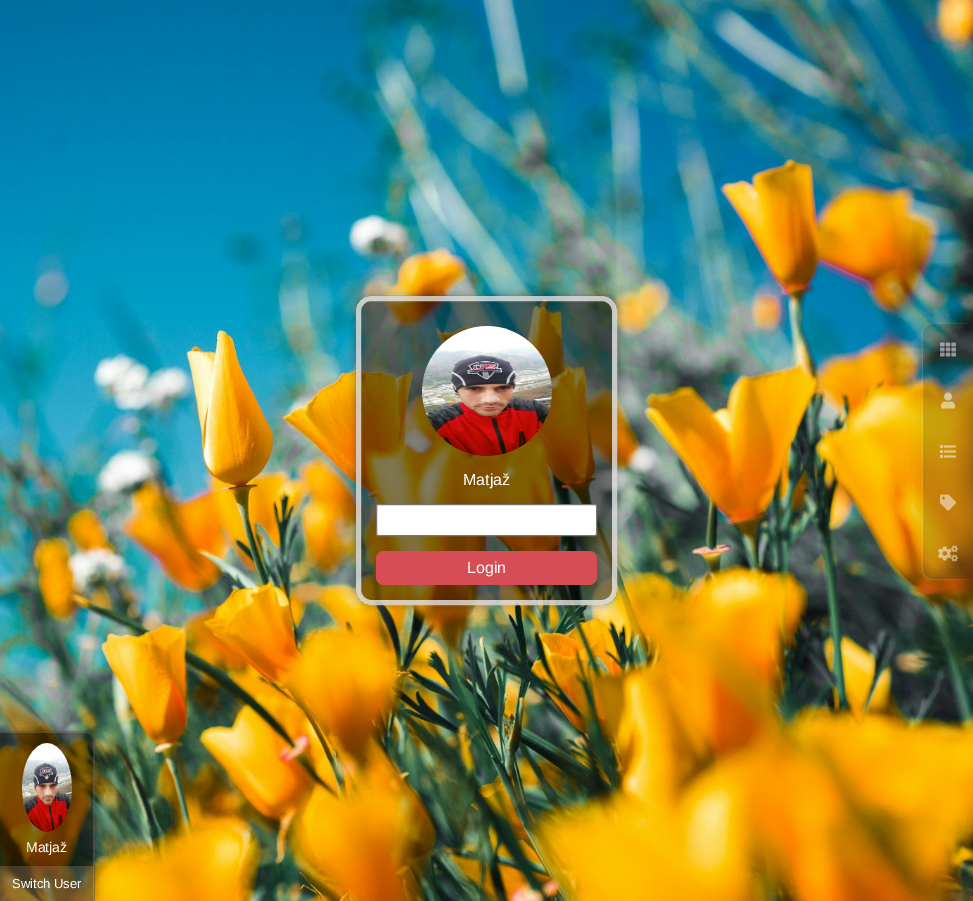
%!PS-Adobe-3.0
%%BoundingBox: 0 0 973 901
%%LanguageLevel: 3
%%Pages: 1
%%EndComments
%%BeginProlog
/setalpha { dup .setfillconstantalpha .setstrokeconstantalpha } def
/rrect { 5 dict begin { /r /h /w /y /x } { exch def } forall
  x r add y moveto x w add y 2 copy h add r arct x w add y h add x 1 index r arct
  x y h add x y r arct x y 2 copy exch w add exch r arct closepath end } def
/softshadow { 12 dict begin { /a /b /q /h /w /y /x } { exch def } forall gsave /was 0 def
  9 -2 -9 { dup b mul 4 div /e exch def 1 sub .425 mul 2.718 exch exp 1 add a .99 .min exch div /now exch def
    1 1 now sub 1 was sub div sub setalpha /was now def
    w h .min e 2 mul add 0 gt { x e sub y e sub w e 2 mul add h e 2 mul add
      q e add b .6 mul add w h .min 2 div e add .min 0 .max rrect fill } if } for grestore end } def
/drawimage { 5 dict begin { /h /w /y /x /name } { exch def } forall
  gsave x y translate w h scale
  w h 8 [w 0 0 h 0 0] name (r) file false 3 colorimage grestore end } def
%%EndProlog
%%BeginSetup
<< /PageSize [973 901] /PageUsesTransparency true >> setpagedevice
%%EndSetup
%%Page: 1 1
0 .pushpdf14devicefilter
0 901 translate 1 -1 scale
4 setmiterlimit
1 setgray
0 0 973 901 rectfill
(images/1.raw) 0 0 973 901 drawimage
gsave
newpath 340 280 moveto 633 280 lineto 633 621 lineto 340 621 lineto closepath 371 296 moveto 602 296 lineto 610.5 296 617 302.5 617 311 curveto 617 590 lineto 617 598.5 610.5 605 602 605 curveto 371 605 lineto 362.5 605 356 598.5 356 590 curveto 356 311 lineto 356 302.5 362.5 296 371 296 curveto closepath eoclip newpath
0 setgray
356 296 261 309 15 5 0.4 softshadow
grestore
0.5 setalpha
0 setgray
356 296 261 309 15 rrect fill
0.7 setalpha
1 setgray
5 setlinewidth
358.5 298.5 256 304 12.5 rrect stroke
1 setalpha
(images/2.raw) 422 326 130 130 drawimage
376.5 504.5 220 31 1.5 rrect gsave fill grestore
0.463 setgray
1 setlinewidth
stroke
0.839 0.302 0.333 setrgbcolor
376 551 221 34 8 rrect fill
gsave
newpath 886 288 moveto 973 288 lineto 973 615 lineto 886 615 lineto closepath 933 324 moveto 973 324 lineto 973 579 lineto 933 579 lineto 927.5 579 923 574.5 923 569 curveto 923 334 lineto 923 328.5 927.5 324 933 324 curveto closepath eoclip newpath
0 setgray
917 319 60 265 15 10 0.1 softshadow
grestore
gsave
newpath 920 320 moveto 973 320 lineto 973 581 lineto 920 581 lineto closepath 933 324 moveto 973 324 lineto 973 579 lineto 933 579 lineto 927.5 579 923 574.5 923 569 curveto 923 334 lineto 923 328.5 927.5 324 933 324 curveto closepath eoclip newpath
1 setgray
923 323 50 255 10 0.5 0.1 softshadow
grestore
gsave
newpath 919 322 moveto 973 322 lineto 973 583 lineto 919 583 lineto closepath 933 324 moveto 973 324 lineto 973 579 lineto 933 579 lineto 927.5 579 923 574.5 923 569 curveto 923 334 lineto 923 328.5 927.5 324 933 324 curveto closepath eoclip newpath
1 setgray
922 325 50 255 10 0.5 0.1 softshadow
grestore
0.25 setalpha
0.157 setgray
newpath 933 324 moveto 973 324 lineto 973 579 lineto 933 579 lineto 927.5 579 923 574.5 923 569 curveto 923 334 lineto 923 328.5 927.5 324 933 324 curveto closepath fill
1 setalpha
(images/3.raw) 940 342 16 15 drawimage
(images/4.raw) 941 392 14 17 drawimage
(images/5.raw) 940 445 16 13 drawimage
(images/6.raw) 940 494 16 17 drawimage
(images/7.raw) 938 545 20 17 drawimage
gsave
newpath 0 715 moveto 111 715 lineto 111 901 lineto 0 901 lineto closepath 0 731 moveto 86 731 lineto 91 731 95 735 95 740 curveto 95 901 lineto 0 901 lineto closepath eoclip newpath
0 setgray
0 731 95 170 9 5 0.4 softshadow
grestore
0.5 setalpha
0 setgray
newpath 0 731 moveto 86 731 lineto 91 731 95 735 95 740 curveto 95 901 lineto 0 901 lineto closepath fill
0.15 setalpha
1 setgray
newpath 0 731 moveto 86 731 lineto 91 731 95 735 95 740 curveto 95 901 lineto 0 901 lineto closepath 0 733 moveto 86 733 lineto 90 733 93 736 93 740 curveto 93 901 lineto 0 901 lineto closepath eofill
1 setalpha
(images/8.raw) 22 743 50 89 drawimage
0.15 setalpha
0 866 94 35 rectfill
/LiberationSans-Regular [16 0 0 -16 0 0] selectfont
1 setalpha
463 485 moveto (Matjaž) show
467 573 moveto (Login) show
/LiberationSans-Regular [14 0 0 -14 0 0] selectfont
26 852 moveto (Matjaž) show
/LiberationSans-Regular [13 0 0 -13 0 0] selectfont
12 888 moveto (Switch User) show
.poppdf14devicefilter showpage
%%EOF
